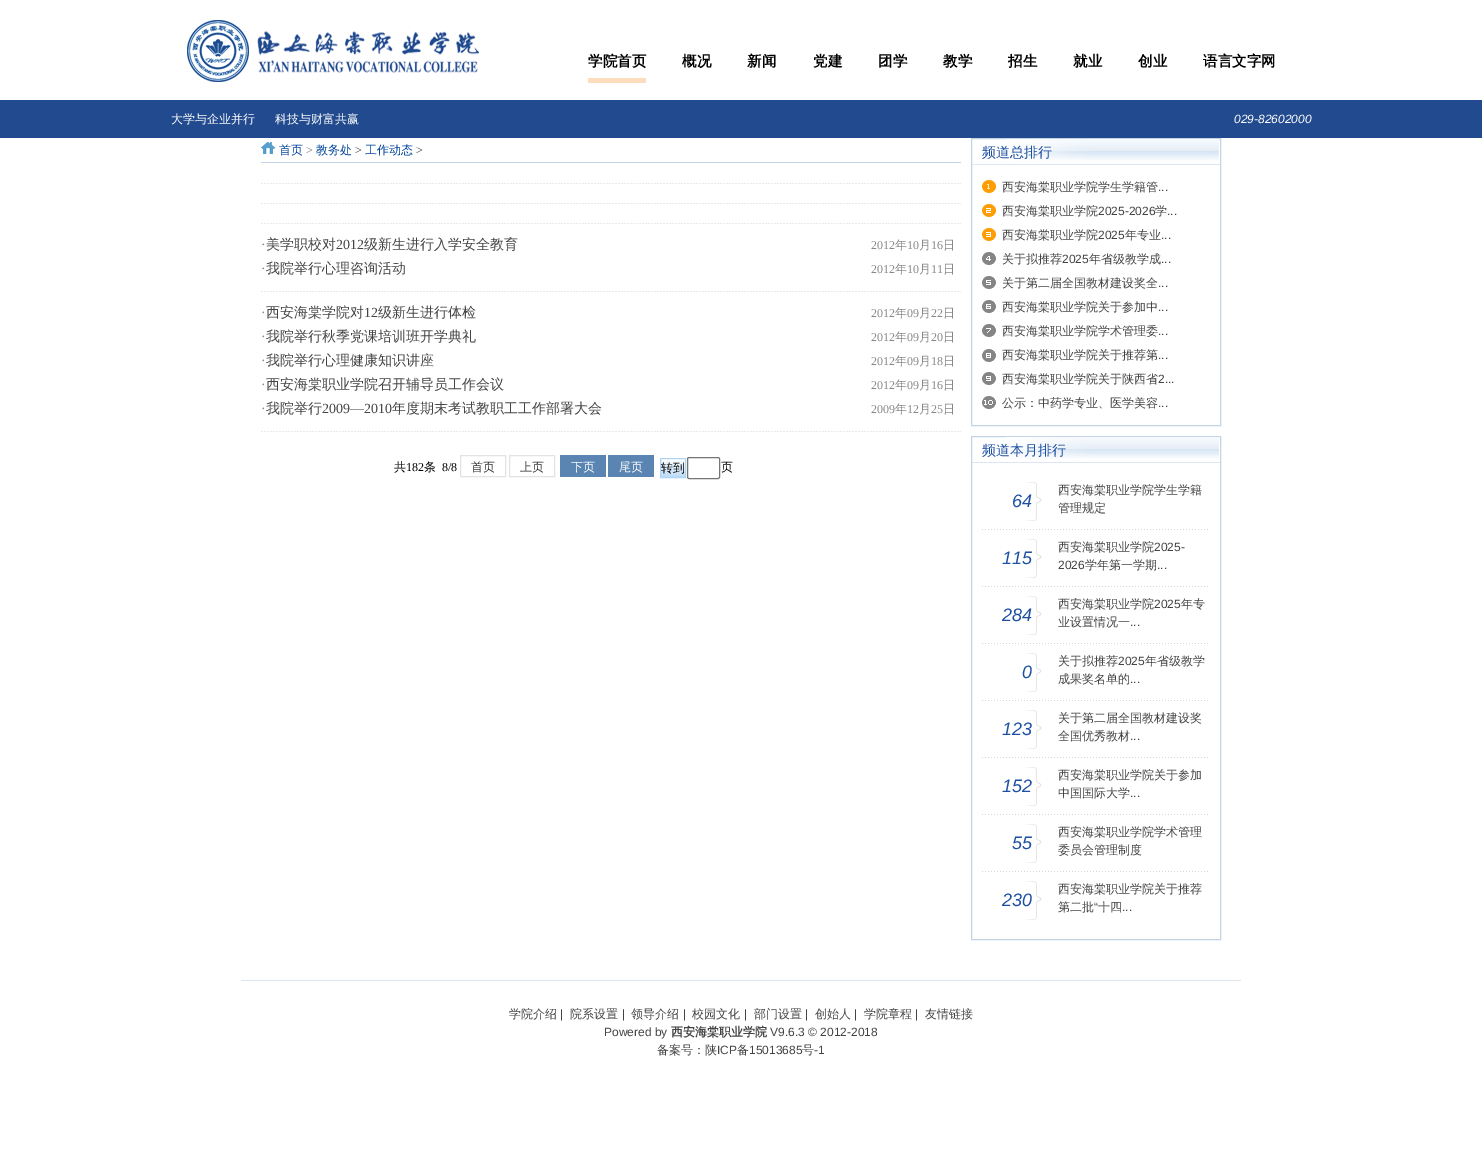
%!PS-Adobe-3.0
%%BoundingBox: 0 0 1482 1164
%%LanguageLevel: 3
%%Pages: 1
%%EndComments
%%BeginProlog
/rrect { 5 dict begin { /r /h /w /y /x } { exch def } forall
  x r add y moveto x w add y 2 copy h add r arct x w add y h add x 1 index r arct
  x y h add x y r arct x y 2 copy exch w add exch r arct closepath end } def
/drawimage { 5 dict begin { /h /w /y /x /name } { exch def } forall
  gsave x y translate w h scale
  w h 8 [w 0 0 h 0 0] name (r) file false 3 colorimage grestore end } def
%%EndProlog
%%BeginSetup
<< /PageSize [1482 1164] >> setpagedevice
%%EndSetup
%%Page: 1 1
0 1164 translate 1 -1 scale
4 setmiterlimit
1 setgray
0 0 1482 1164 rectfill
(images/1.raw) 187 20 292 62 drawimage
0.996 0.863 0.745 setrgbcolor
588 78 58 5 rectfill
0.133 0.294 0.561 setrgbcolor
0 100 1482 38 rectfill
(images/2.raw) 261 142 14 12 drawimage
0.765 0.831 0.906 setrgbcolor
261 162 700 1 rectfill
(images/3.raw) 261 183 700 1 drawimage
(images/3.raw) 261 203 700 1 drawimage
(images/3.raw) 261 223 700 1 drawimage
(images/3.raw) 261 291 700 1 drawimage
(images/3.raw) 261 431 700 1 drawimage
0.89 setgray
460.5 455.5 45 21 rectstroke
509.5 455.5 45 21 rectstroke
0.353 0.522 0.698 setrgbcolor
560 455 46 22 rectfill
608 455 46 22 rectfill
gsave newpath 661 460 moveto 685 460 lineto 685 477 lineto 661 477 lineto closepath clip newpath
<< /ShadingType 2 /ColorSpace /DeviceRGB /Coords [661 459 661 477] /Extend [true true] /Function << /FunctionType 2 /Domain [0 1] /C0 [1 1 1] /C1 [0.741 0.859 0.969] /N 1 >> >> shfill grestore
0.686 0.835 0.961 setrgbcolor
660.5 458.5 25 19 rectstroke
0.463 setgray
687.5 457.5 32 21 1.5 rrect stroke
0.765 0.831 0.906 setrgbcolor
971.5 138.5 249 287 rectstroke
(images/4.raw) 1006 139 213 22 drawimage
0.863 0.906 0.953 setrgbcolor
972 164 248 1 rectfill
(images/5.raw) 982 180 14 229 drawimage
0.765 0.831 0.906 setrgbcolor
971.5 436.5 249 503 rectstroke
(images/4.raw) 1006 437 213 22 drawimage
0.863 0.906 0.953 setrgbcolor
972 462 248 1 rectfill
(images/6.raw) 1026 482 16 39 drawimage
(images/7.raw) 982 529 226 1 drawimage
(images/6.raw) 1026 539 16 39 drawimage
(images/7.raw) 982 586 226 1 drawimage
(images/6.raw) 1026 596 16 39 drawimage
(images/7.raw) 982 643 226 1 drawimage
(images/6.raw) 1026 653 16 39 drawimage
(images/7.raw) 982 700 226 1 drawimage
(images/6.raw) 1026 710 16 39 drawimage
(images/7.raw) 982 757 226 1 drawimage
(images/6.raw) 1026 767 16 39 drawimage
(images/7.raw) 982 814 226 1 drawimage
(images/6.raw) 1026 824 16 39 drawimage
(images/7.raw) 982 871 226 1 drawimage
(images/6.raw) 1026 881 16 39 drawimage
0.859 0.906 0.929 setrgbcolor
241 980 1000 1 rectfill
/WenQuanYiZenHei-Bold [14.5 0 0 -14.5 0 0] selectfont
0 setgray
588 66 moveto (学院首页) show
682 66 moveto (概况) show
747 66 moveto (新闻) show
813 66 moveto (党建) show
878 66 moveto (团学) show
943 66 moveto (教学) show
1008 66 moveto (招生) show
1073 66 moveto (就业) show
1138 66 moveto (创业) show
1203 66 moveto (语言文字网) show
/WenQuanYiZenHei-Medium [12 0 0 -12 0 0] selectfont
1 setgray
171 123 moveto (大学与企业并行) show
275 123 moveto (科技与财富共赢) show
/LiberationSans-Italic [12 0 0 -12 0 0] selectfont
1234 123 moveto (029-82602000) show
/WenQuanYiZenHei-Medium [12 0 0 -12 0 0] selectfont
0 0.267 0.6 setrgbcolor
279 154 moveto (首页) show
/LiberationSerif-Regular [12 0 0 -12 0 0] selectfont
0.494 setgray
306 154 moveto (>) show
/WenQuanYiZenHei-Medium [12 0 0 -12 0 0] selectfont
0 0.267 0.6 setrgbcolor
316 154 moveto (教务处) show
/LiberationSerif-Regular [12 0 0 -12 0 0] selectfont
0.267 setgray
355 154 moveto (>) show
/WenQuanYiZenHei-Medium [12 0 0 -12 0 0] selectfont
0 0.267 0.6 setrgbcolor
365 154 moveto (工作动态) show
/LiberationSerif-Regular [12 0 0 -12 0 0] selectfont
0.267 setgray
416 154 moveto (>) show
/LiberationSerif-Regular [14 0 0 -14 0 0] selectfont
0.533 setgray
261 249 moveto (·) show
/WenQuanYiZenHei-Medium [14 0 0 -14 0 0] selectfont
0.267 setgray
266 249 moveto (美学职校对) show
/LiberationSerif-Regular [14 0 0 -14 0 0] selectfont
336 249 moveto (2012) show
/WenQuanYiZenHei-Medium [14 0 0 -14 0 0] selectfont
364 249 moveto (级新生进行入学安全教育) show
/LiberationSerif-Regular [12 0 0 -12 0 0] selectfont
0.533 setgray
871 249 moveto (2012) show
/WenQuanYiZenHei-Medium [12 0 0 -12 0 0] selectfont
895 249 moveto (年) show
/LiberationSerif-Regular [12 0 0 -12 0 0] selectfont
907 249 moveto (10) show
/WenQuanYiZenHei-Medium [12 0 0 -12 0 0] selectfont
919 249 moveto (月) show
/LiberationSerif-Regular [12 0 0 -12 0 0] selectfont
931 249 moveto (16) show
/WenQuanYiZenHei-Medium [12 0 0 -12 0 0] selectfont
943 249 moveto (日) show
/LiberationSerif-Regular [14 0 0 -14 0 0] selectfont
261 273 moveto (·) show
/WenQuanYiZenHei-Medium [14 0 0 -14 0 0] selectfont
0.267 setgray
266 273 moveto (我院举行心理咨询活动) show
/LiberationSerif-Regular [12 0 0 -12 0 0] selectfont
0.533 setgray
871 273 moveto (2012) show
/WenQuanYiZenHei-Medium [12 0 0 -12 0 0] selectfont
895 273 moveto (年) show
/LiberationSerif-Regular [12 0 0 -12 0 0] selectfont
907 273 moveto (10) show
/WenQuanYiZenHei-Medium [12 0 0 -12 0 0] selectfont
919 273 moveto (月) show
/LiberationSerif-Regular [12 0 0 -12 0 0] selectfont
931 273 moveto (11) show
/WenQuanYiZenHei-Medium [12 0 0 -12 0 0] selectfont
943 273 moveto (日) show
/LiberationSerif-Regular [14 0 0 -14 0 0] selectfont
261 317 moveto (·) show
/WenQuanYiZenHei-Medium [14 0 0 -14 0 0] selectfont
0.267 setgray
266 317 moveto (西安海棠学院对) show
/LiberationSerif-Regular [14 0 0 -14 0 0] selectfont
364 317 moveto (12) show
/WenQuanYiZenHei-Medium [14 0 0 -14 0 0] selectfont
378 317 moveto (级新生进行体检) show
/LiberationSerif-Regular [12 0 0 -12 0 0] selectfont
0.533 setgray
871 317 moveto (2012) show
/WenQuanYiZenHei-Medium [12 0 0 -12 0 0] selectfont
895 317 moveto (年) show
/LiberationSerif-Regular [12 0 0 -12 0 0] selectfont
907 317 moveto (09) show
/WenQuanYiZenHei-Medium [12 0 0 -12 0 0] selectfont
919 317 moveto (月) show
/LiberationSerif-Regular [12 0 0 -12 0 0] selectfont
931 317 moveto (22) show
/WenQuanYiZenHei-Medium [12 0 0 -12 0 0] selectfont
943 317 moveto (日) show
/LiberationSerif-Regular [14 0 0 -14 0 0] selectfont
261 341 moveto (·) show
/WenQuanYiZenHei-Medium [14 0 0 -14 0 0] selectfont
0.267 setgray
266 341 moveto (我院举行秋季党课培训班开学典礼) show
/LiberationSerif-Regular [12 0 0 -12 0 0] selectfont
0.533 setgray
871 341 moveto (2012) show
/WenQuanYiZenHei-Medium [12 0 0 -12 0 0] selectfont
895 341 moveto (年) show
/LiberationSerif-Regular [12 0 0 -12 0 0] selectfont
907 341 moveto (09) show
/WenQuanYiZenHei-Medium [12 0 0 -12 0 0] selectfont
919 341 moveto (月) show
/LiberationSerif-Regular [12 0 0 -12 0 0] selectfont
931 341 moveto (20) show
/WenQuanYiZenHei-Medium [12 0 0 -12 0 0] selectfont
943 341 moveto (日) show
/LiberationSerif-Regular [14 0 0 -14 0 0] selectfont
261 365 moveto (·) show
/WenQuanYiZenHei-Medium [14 0 0 -14 0 0] selectfont
0.267 setgray
266 365 moveto (我院举行心理健康知识讲座) show
/LiberationSerif-Regular [12 0 0 -12 0 0] selectfont
0.533 setgray
871 365 moveto (2012) show
/WenQuanYiZenHei-Medium [12 0 0 -12 0 0] selectfont
895 365 moveto (年) show
/LiberationSerif-Regular [12 0 0 -12 0 0] selectfont
907 365 moveto (09) show
/WenQuanYiZenHei-Medium [12 0 0 -12 0 0] selectfont
919 365 moveto (月) show
/LiberationSerif-Regular [12 0 0 -12 0 0] selectfont
931 365 moveto (18) show
/WenQuanYiZenHei-Medium [12 0 0 -12 0 0] selectfont
943 365 moveto (日) show
/LiberationSerif-Regular [14 0 0 -14 0 0] selectfont
261 389 moveto (·) show
/WenQuanYiZenHei-Medium [14 0 0 -14 0 0] selectfont
0.267 setgray
266 389 moveto (西安海棠职业学院召开辅导员工作会议) show
/LiberationSerif-Regular [12 0 0 -12 0 0] selectfont
0.533 setgray
871 389 moveto (2012) show
/WenQuanYiZenHei-Medium [12 0 0 -12 0 0] selectfont
895 389 moveto (年) show
/LiberationSerif-Regular [12 0 0 -12 0 0] selectfont
907 389 moveto (09) show
/WenQuanYiZenHei-Medium [12 0 0 -12 0 0] selectfont
919 389 moveto (月) show
/LiberationSerif-Regular [12 0 0 -12 0 0] selectfont
931 389 moveto (16) show
/WenQuanYiZenHei-Medium [12 0 0 -12 0 0] selectfont
943 389 moveto (日) show
/LiberationSerif-Regular [14 0 0 -14 0 0] selectfont
261 413 moveto (·) show
/WenQuanYiZenHei-Medium [14 0 0 -14 0 0] selectfont
0.267 setgray
266 413 moveto (我院举行) show
/LiberationSerif-Regular [14 0 0 -14 0 0] selectfont
322 413 moveto (2009—2010) show
/WenQuanYiZenHei-Medium [14 0 0 -14 0 0] selectfont
392 413 moveto (年度期末考试教职工工作部署大会) show
/LiberationSerif-Regular [12 0 0 -12 0 0] selectfont
0.533 setgray
871 413 moveto (2009) show
/WenQuanYiZenHei-Medium [12 0 0 -12 0 0] selectfont
895 413 moveto (年) show
/LiberationSerif-Regular [12 0 0 -12 0 0] selectfont
907 413 moveto (12) show
/WenQuanYiZenHei-Medium [12 0 0 -12 0 0] selectfont
919 413 moveto (月) show
/LiberationSerif-Regular [12 0 0 -12 0 0] selectfont
931 413 moveto (25) show
/WenQuanYiZenHei-Medium [12 0 0 -12 0 0] selectfont
943 413 moveto (日) show
0 setgray
394 471 moveto (共) show
/LiberationSerif-Regular [12 0 0 -12 0 0] selectfont
406 471 moveto (182) show
/WenQuanYiZenHei-Medium [12 0 0 -12 0 0] selectfont
424 471 moveto (条) show
/LiberationSerif-Regular [12 0 0 -12 0 0] selectfont
442 471 moveto (8/8) show
/WenQuanYiZenHei-Medium [12 0 0 -12 0 0] selectfont
0.2 setgray
471 471 moveto (首页) show
520 471 moveto (上页) show
1 setgray
571 471 moveto (下页) show
619 471 moveto (尾页) show
0 setgray
661 472 moveto (转到) show
721 471 moveto (页) show
/WenQuanYiZenHei-Medium [14 0 0 -14 0 0] selectfont
0.118 0.314 0.635 setrgbcolor
982 157 moveto (频道总排行) show
/WenQuanYiZenHei-Medium [12 0 0 -12 0 0] selectfont
0.267 setgray
1002 191 moveto (西安海棠职业学院学生学籍管) show
/LiberationSans-Regular [12 0 0 -12 0 0] selectfont
1158 191 moveto (...) show
/WenQuanYiZenHei-Medium [12 0 0 -12 0 0] selectfont
1002 215 moveto (西安海棠职业学院) show
/LiberationSans-Regular [12 0 0 -12 0 0] selectfont
1098 215 moveto (2025-2026) show
/WenQuanYiZenHei-Medium [12 0 0 -12 0 0] selectfont
1155 215 moveto (学) show
/LiberationSans-Regular [12 0 0 -12 0 0] selectfont
1167 215 moveto (...) show
/WenQuanYiZenHei-Medium [12 0 0 -12 0 0] selectfont
1002 239 moveto (西安海棠职业学院) show
/LiberationSans-Regular [12 0 0 -12 0 0] selectfont
1098 239 moveto (2025) show
/WenQuanYiZenHei-Medium [12 0 0 -12 0 0] selectfont
1125 239 moveto (年专业) show
/LiberationSans-Regular [12 0 0 -12 0 0] selectfont
1161 239 moveto (...) show
/WenQuanYiZenHei-Medium [12 0 0 -12 0 0] selectfont
1002 263 moveto (关于拟推荐) show
/LiberationSans-Regular [12 0 0 -12 0 0] selectfont
1062 263 moveto (2025) show
/WenQuanYiZenHei-Medium [12 0 0 -12 0 0] selectfont
1089 263 moveto (年省级教学成) show
/LiberationSans-Regular [12 0 0 -12 0 0] selectfont
1161 263 moveto (...) show
/WenQuanYiZenHei-Medium [12 0 0 -12 0 0] selectfont
1002 287 moveto (关于第二届全国教材建设奖全) show
/LiberationSans-Regular [12 0 0 -12 0 0] selectfont
1158 287 moveto (...) show
/WenQuanYiZenHei-Medium [12 0 0 -12 0 0] selectfont
1002 311 moveto (西安海棠职业学院关于参加中) show
/LiberationSans-Regular [12 0 0 -12 0 0] selectfont
1158 311 moveto (...) show
/WenQuanYiZenHei-Medium [12 0 0 -12 0 0] selectfont
1002 335 moveto (西安海棠职业学院学术管理委) show
/LiberationSans-Regular [12 0 0 -12 0 0] selectfont
1158 335 moveto (...) show
/WenQuanYiZenHei-Medium [12 0 0 -12 0 0] selectfont
1002 359 moveto (西安海棠职业学院关于推荐第) show
/LiberationSans-Regular [12 0 0 -12 0 0] selectfont
1158 359 moveto (...) show
/WenQuanYiZenHei-Medium [12 0 0 -12 0 0] selectfont
1002 383 moveto (西安海棠职业学院关于陕西省) show
/LiberationSans-Regular [12 0 0 -12 0 0] selectfont
1158 383 moveto (2...) show
/WenQuanYiZenHei-Medium [12 0 0 -12 0 0] selectfont
1002 407 moveto (公示：中药学专业、医学美容) show
/LiberationSans-Regular [12 0 0 -12 0 0] selectfont
1158 407 moveto (...) show
/WenQuanYiZenHei-Medium [14 0 0 -14 0 0] selectfont
0.118 0.314 0.635 setrgbcolor
982 455 moveto (频道本月排行) show
/LiberationSans-Italic [18 0 0 -18 0 0] selectfont
1012 507 moveto (64) show
/WenQuanYiZenHei-Medium [12 0 0 -12 0 0] selectfont
0.267 setgray
1058 494 moveto (西安海棠职业学院学生学籍) show
1058 512 moveto (管理规定) show
/LiberationSans-Italic [18 0 0 -18 0 0] selectfont
0.118 0.314 0.635 setrgbcolor
1002 564 moveto (115) show
/WenQuanYiZenHei-Medium [12 0 0 -12 0 0] selectfont
0.267 setgray
1058 551 moveto (西安海棠职业学院) show
/LiberationSans-Regular [12 0 0 -12 0 0] selectfont
1154 551 moveto (2025-) show
1058 569 moveto (2026) show
/WenQuanYiZenHei-Medium [12 0 0 -12 0 0] selectfont
1085 569 moveto (学年第一学期) show
/LiberationSans-Regular [12 0 0 -12 0 0] selectfont
1157 569 moveto (...) show
/LiberationSans-Italic [18 0 0 -18 0 0] selectfont
0.118 0.314 0.635 setrgbcolor
1002 621 moveto (284) show
/WenQuanYiZenHei-Medium [12 0 0 -12 0 0] selectfont
0.267 setgray
1058 608 moveto (西安海棠职业学院) show
/LiberationSans-Regular [12 0 0 -12 0 0] selectfont
1154 608 moveto (2025) show
/WenQuanYiZenHei-Medium [12 0 0 -12 0 0] selectfont
1181 608 moveto (年专) show
1058 626 moveto (业设置情况一) show
/LiberationSans-Regular [12 0 0 -12 0 0] selectfont
1130 626 moveto (...) show
/LiberationSans-Italic [18 0 0 -18 0 0] selectfont
0.118 0.314 0.635 setrgbcolor
1022 678 moveto (0) show
/WenQuanYiZenHei-Medium [12 0 0 -12 0 0] selectfont
0.267 setgray
1058 665 moveto (关于拟推荐) show
/LiberationSans-Regular [12 0 0 -12 0 0] selectfont
1118 665 moveto (2025) show
/WenQuanYiZenHei-Medium [12 0 0 -12 0 0] selectfont
1145 665 moveto (年省级教学) show
1058 683 moveto (成果奖名单的) show
/LiberationSans-Regular [12 0 0 -12 0 0] selectfont
1130 683 moveto (...) show
/LiberationSans-Italic [18 0 0 -18 0 0] selectfont
0.118 0.314 0.635 setrgbcolor
1002 735 moveto (123) show
/WenQuanYiZenHei-Medium [12 0 0 -12 0 0] selectfont
0.267 setgray
1058 722 moveto (关于第二届全国教材建设奖) show
1058 740 moveto (全国优秀教材) show
/LiberationSans-Regular [12 0 0 -12 0 0] selectfont
1130 740 moveto (...) show
/LiberationSans-Italic [18 0 0 -18 0 0] selectfont
0.118 0.314 0.635 setrgbcolor
1002 792 moveto (152) show
/WenQuanYiZenHei-Medium [12 0 0 -12 0 0] selectfont
0.267 setgray
1058 779 moveto (西安海棠职业学院关于参加) show
1058 797 moveto (中国国际大学) show
/LiberationSans-Regular [12 0 0 -12 0 0] selectfont
1130 797 moveto (...) show
/LiberationSans-Italic [18 0 0 -18 0 0] selectfont
0.118 0.314 0.635 setrgbcolor
1012 849 moveto (55) show
/WenQuanYiZenHei-Medium [12 0 0 -12 0 0] selectfont
0.267 setgray
1058 836 moveto (西安海棠职业学院学术管理) show
1058 854 moveto (委员会管理制度) show
/LiberationSans-Italic [18 0 0 -18 0 0] selectfont
0.118 0.314 0.635 setrgbcolor
1002 906 moveto (230) show
/WenQuanYiZenHei-Medium [12 0 0 -12 0 0] selectfont
0.267 setgray
1058 893 moveto (西安海棠职业学院关于推荐) show
1058 911 moveto (第二批) show
/LiberationSans-Regular [12 0 0 -12 0 0] selectfont
1094 911 moveto (“) show
/WenQuanYiZenHei-Medium [12 0 0 -12 0 0] selectfont
1098 911 moveto (十四) show
/LiberationSans-Regular [12 0 0 -12 0 0] selectfont
1122 911 moveto (...) show
/WenQuanYiZenHei-Medium [12 0 0 -12 0 0] selectfont
509 1018 moveto (学院介绍) show
/LiberationSans-Regular [12 0 0 -12 0 0] selectfont
560 1018 moveto (|) show
/WenQuanYiZenHei-Medium [12 0 0 -12 0 0] selectfont
570 1018 moveto (院系设置) show
/LiberationSans-Regular [12 0 0 -12 0 0] selectfont
622 1018 moveto (|) show
/WenQuanYiZenHei-Medium [12 0 0 -12 0 0] selectfont
631 1018 moveto (领导介绍) show
/LiberationSans-Regular [12 0 0 -12 0 0] selectfont
683 1018 moveto (|) show
/WenQuanYiZenHei-Medium [12 0 0 -12 0 0] selectfont
692 1018 moveto (校园文化) show
/LiberationSans-Regular [12 0 0 -12 0 0] selectfont
744 1018 moveto (|) show
/WenQuanYiZenHei-Medium [12 0 0 -12 0 0] selectfont
754 1018 moveto (部门设置) show
/LiberationSans-Regular [12 0 0 -12 0 0] selectfont
805 1018 moveto (|) show
/WenQuanYiZenHei-Medium [12 0 0 -12 0 0] selectfont
815 1018 moveto (创始人) show
/LiberationSans-Regular [12 0 0 -12 0 0] selectfont
854 1018 moveto (|) show
/WenQuanYiZenHei-Medium [12 0 0 -12 0 0] selectfont
864 1018 moveto (学院章程) show
/LiberationSans-Regular [12 0 0 -12 0 0] selectfont
915 1018 moveto (|) show
/WenQuanYiZenHei-Medium [12 0 0 -12 0 0] selectfont
925 1018 moveto (友情链接) show
/LiberationSans-Regular [12 0 0 -12 0 0] selectfont
604 1036 moveto (Powered by) show
/WenQuanYiZenHei-Bold [12 0 0 -12 0 0] selectfont
671 1036 moveto (西安海棠职业学院) show
/LiberationSans-Regular [12 0 0 -12 0 0] selectfont
770 1036 moveto (V9.6.3 © 2012-2018) show
/WenQuanYiZenHei-Medium [12 0 0 -12 0 0] selectfont
657 1054 moveto (备案号：陕) show
/LiberationSans-Regular [12 0 0 -12 0 0] selectfont
717 1054 moveto (ICP) show
/WenQuanYiZenHei-Medium [12 0 0 -12 0 0] selectfont
737 1054 moveto (备) show
/LiberationSans-Regular [12 0 0 -12 0 0] selectfont
749 1054 moveto (15013685) show
/WenQuanYiZenHei-Medium [12 0 0 -12 0 0] selectfont
802 1054 moveto (号) show
/LiberationSans-Regular [12 0 0 -12 0 0] selectfont
814 1054 moveto (-1) show
showpage
%%EOF
